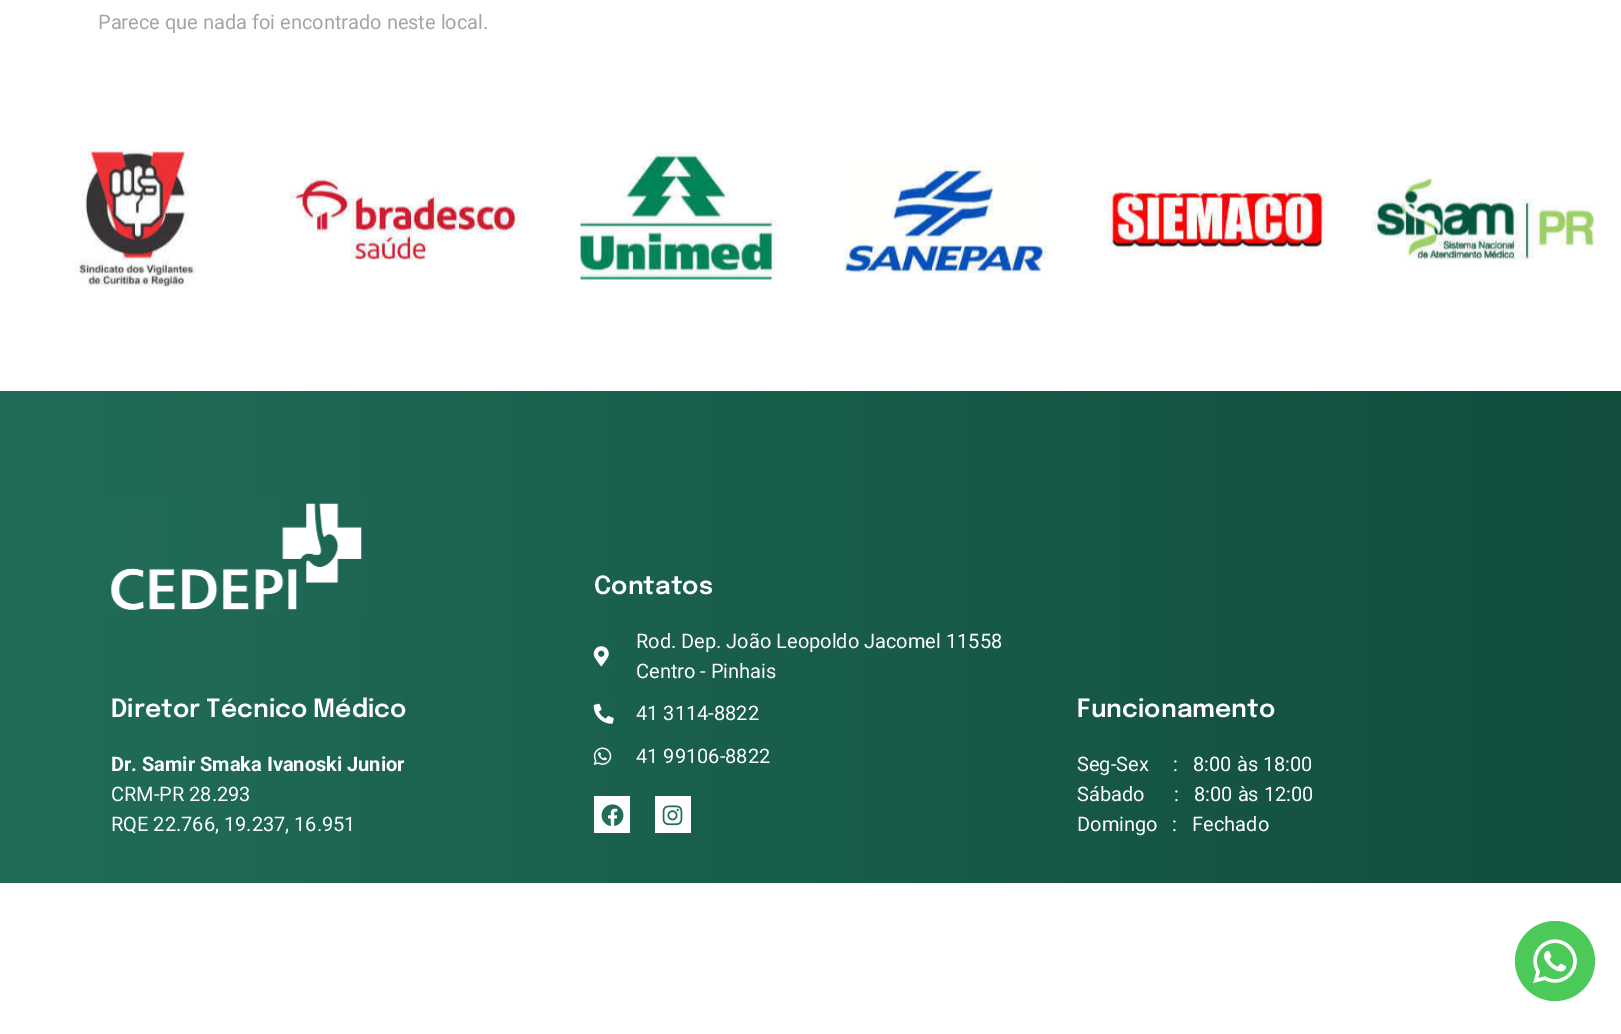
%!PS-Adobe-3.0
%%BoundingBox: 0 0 1621 1034
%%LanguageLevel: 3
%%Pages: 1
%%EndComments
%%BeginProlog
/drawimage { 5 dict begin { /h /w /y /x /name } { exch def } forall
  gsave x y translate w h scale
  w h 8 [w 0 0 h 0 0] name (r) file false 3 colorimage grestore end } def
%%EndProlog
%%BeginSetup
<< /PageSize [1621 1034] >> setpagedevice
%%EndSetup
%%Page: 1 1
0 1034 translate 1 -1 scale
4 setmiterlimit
1 setgray
0 0 1621 1034 rectfill
(images/1.raw) 74 150 122 137 drawimage
(images/2.raw) 290 178 230 82 drawimage
(images/3.raw) 580 151 197 129 drawimage
(images/4.raw) 844 164 204 110 drawimage
(images/5.raw) 1108 191 217 62 drawimage
(images/6.raw) 1371 177 224 83 drawimage
gsave newpath 0 391 moveto 1621 391 lineto 1621 883 lineto 0 883 lineto closepath clip newpath
<< /ShadingType 2 /ColorSpace /DeviceRGB /Coords [0 637 1621 637] /Extend [true true] /Function << /FunctionType 2 /Domain [0 1] /C0 [0.129 0.427 0.349] /C1 [0.071 0.302 0.243] /N 1 >> >> shfill grestore
(images/7.raw) 111 503 251 107 drawimage
(images/8.raw) 593 646 16 21 drawimage
(images/9.raw) 593 703 21 21 drawimage
(images/10.raw) 593 747 19 18 drawimage
594 796 36 37 rectfill
(images/11.raw) 601 804 23 22 drawimage
655 796 36 37 rectfill
(images/12.raw) 662 805 21 21 drawimage
0.294 0.788 0.349 setrgbcolor
newpath 1555 961 40 0 360 arc closepath fill
(images/13.raw) 1533 939 44 45 drawimage
/Roboto-Regular [20 0 0 -20 0 0] selectfont
0.647 setgray
98 29 moveto (Parece que nada foi encontrado neste local.) show
/Epilogue-SemiBold [25 0 0 -25 0 0] selectfont
1 setgray
111 717 moveto (Diretor Técnico Médico) show
/Roboto-Bold [20 0 0 -20 0 0] selectfont
111 771 moveto (Dr. Samir Smaka Ivanoski Junior) show
/Roboto-Regular [20 0 0 -20 0 0] selectfont
111 801 moveto (CRM-PR 28.293) show
111 831 moveto (RQE 22.766, 19.237, 16.951) show
/Epilogue-SemiBold [25 0 0 -25 0 0] selectfont
594 594 moveto (Contatos) show
/Roboto-Regular [20 0 0 -20 0 0] selectfont
636 648 moveto (Rod. Dep. João Leopoldo Jacomel 11558) show
636 678 moveto (Centro - Pinhais) show
636 720 moveto (41 3114-8822) show
636 763 moveto (41 99106-8822) show
/Epilogue-SemiBold [25 0 0 -25 0 0] selectfont
1077 717 moveto (Funcionamento) show
/Roboto-Regular [20 0 0 -20 0 0] selectfont
1077 771 moveto (Seg-Sex     :   8:00 às 18:00) show
1077 801 moveto (Sábado      :   8:00 às 12:00) show
1077 831 moveto (Domingo   :   Fechado) show
showpage
%%EOF
